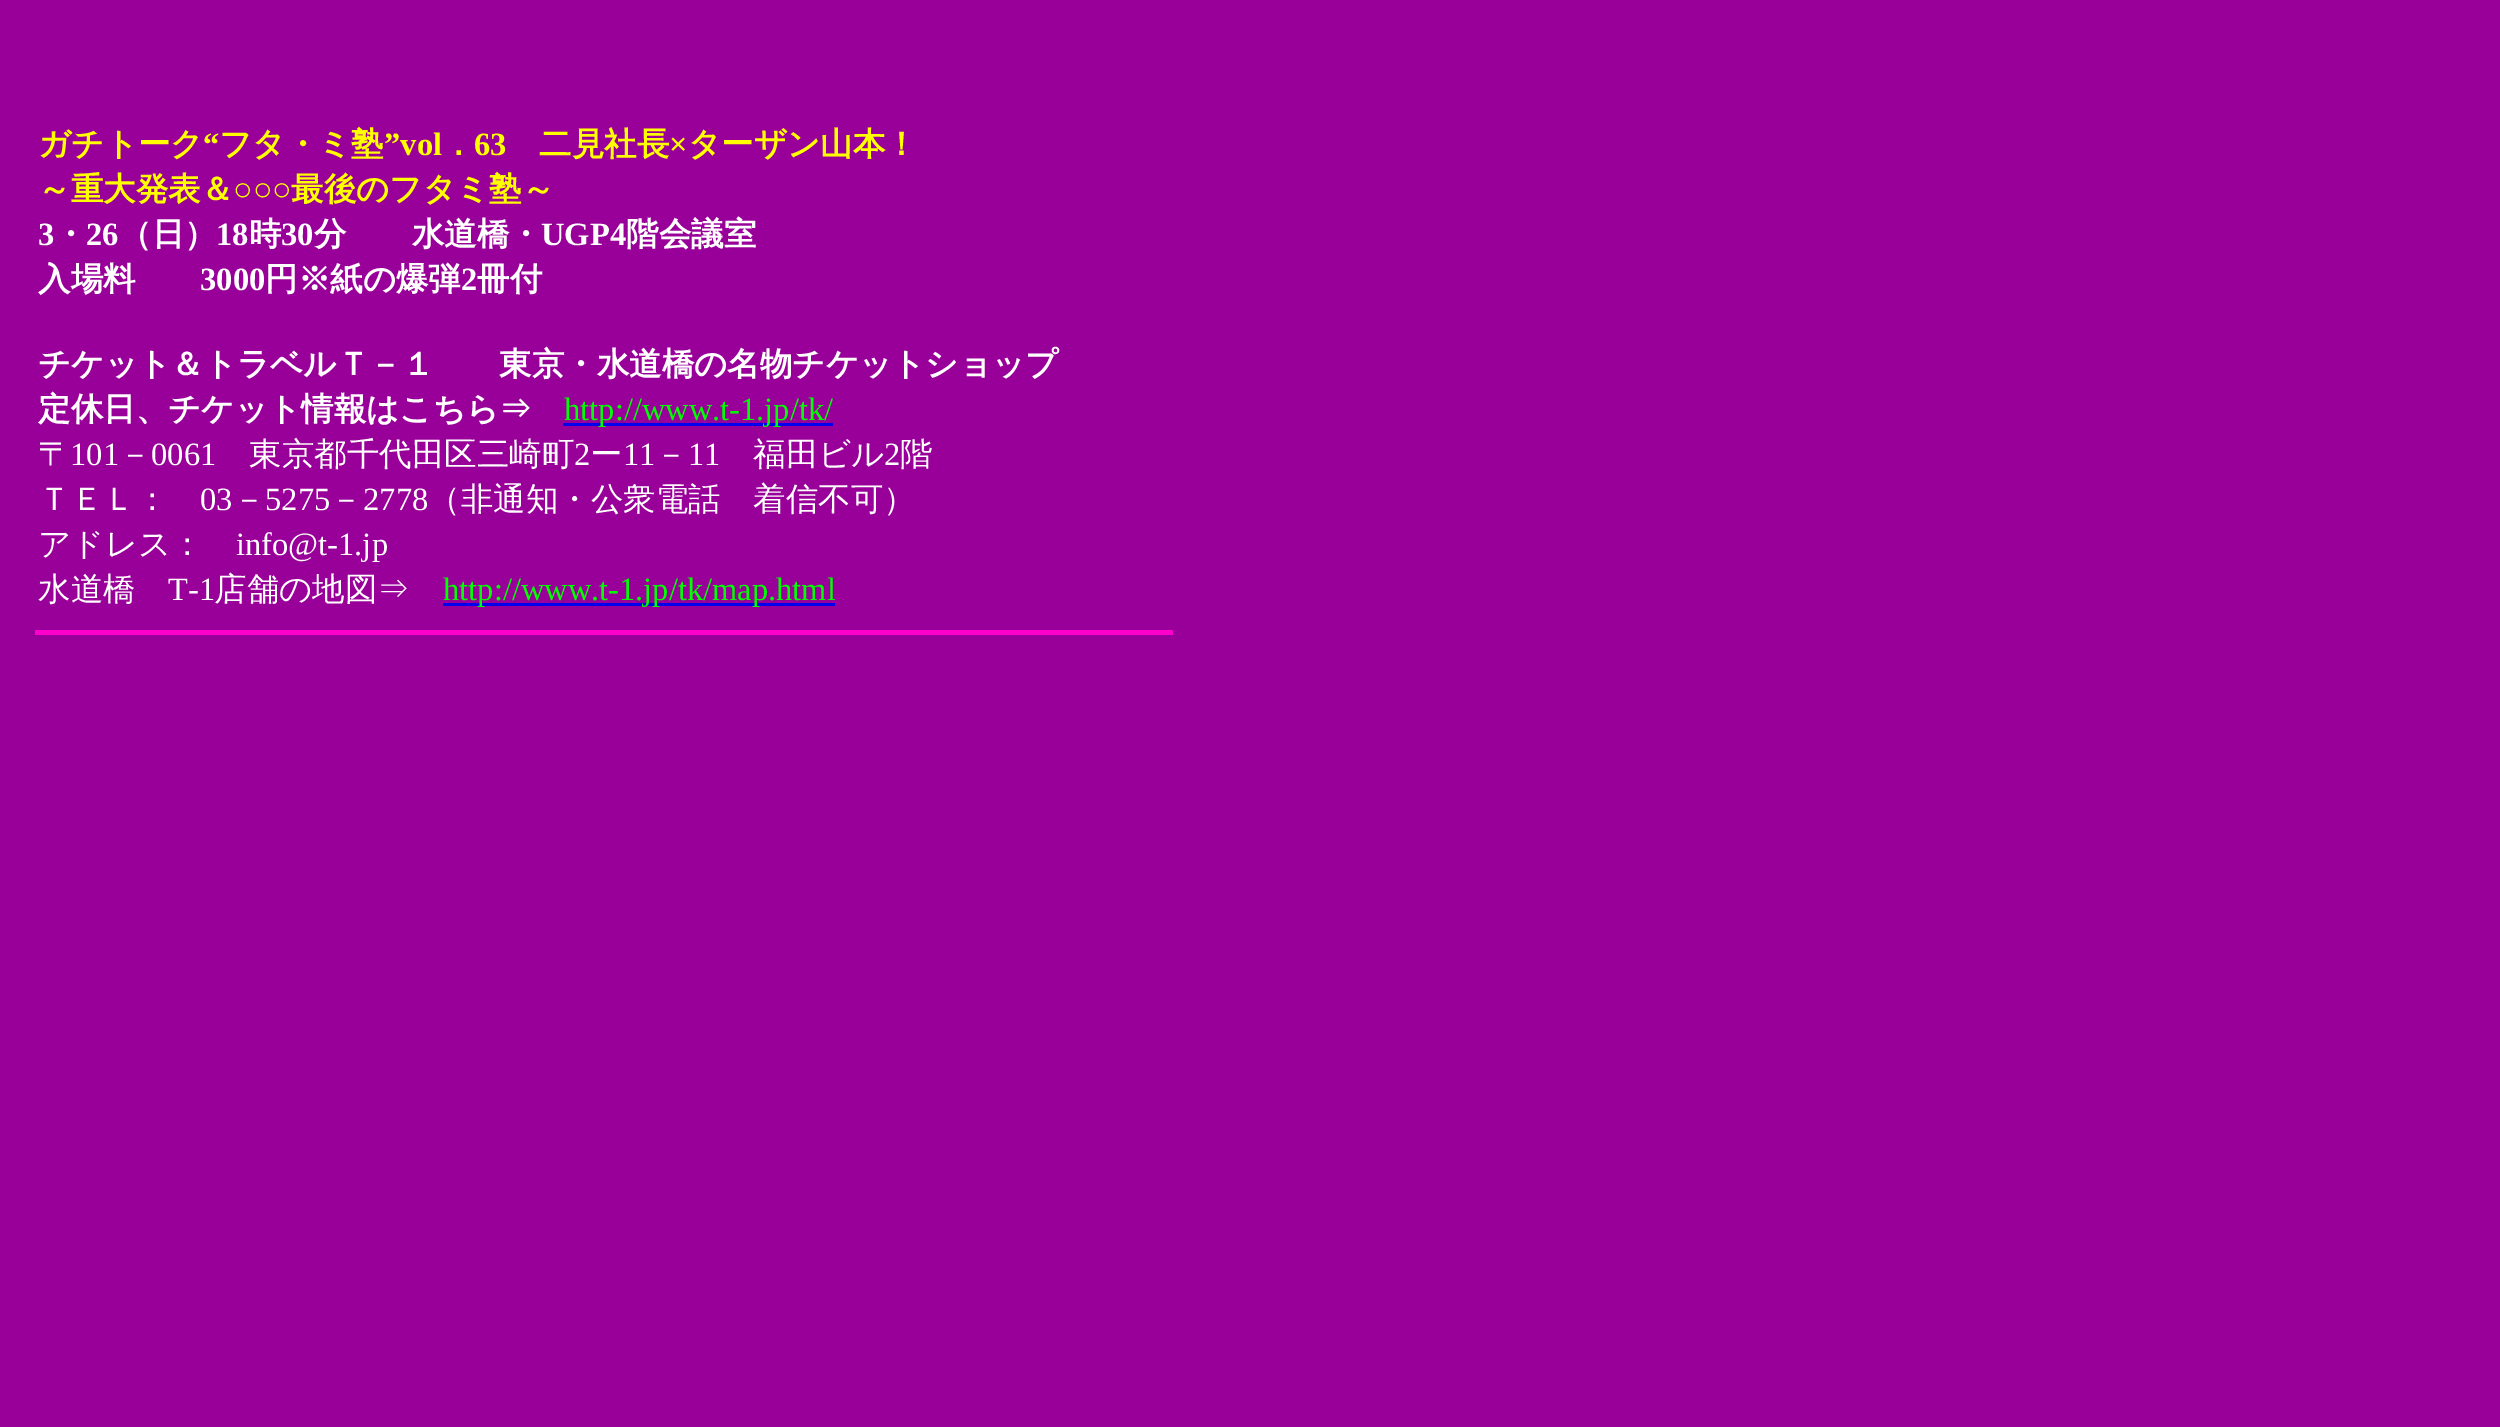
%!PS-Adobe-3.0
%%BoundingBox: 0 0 2500 1427
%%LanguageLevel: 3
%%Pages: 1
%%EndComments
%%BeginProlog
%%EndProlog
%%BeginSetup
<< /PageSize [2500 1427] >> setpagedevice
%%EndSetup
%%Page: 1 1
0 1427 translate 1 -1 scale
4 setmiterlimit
0.6 0 0.6 setrgbcolor
0 0 2500 1427 rectfill
0 0 0.933 setrgbcolor
563 423 270 3 rectfill
443 603 392 3 rectfill
1 0 0.8 setrgbcolor
35 630 1138 5 rectfill
/WenQuanYiZenHei-Bold [32.5 0 0 -32.5 0 0] selectfont
1 1 0 setrgbcolor
38 155 moveto (ガチトーク) show
/LiberationSerif-Bold [32.5 0 0 -32.5 0 0] selectfont
203 155 moveto (“) show
/WenQuanYiZenHei-Bold [32.5 0 0 -32.5 0 0] selectfont
219 155 moveto (フタ・ミ塾) show
/LiberationSerif-Bold [32.5 0 0 -32.5 0 0] selectfont
384 155 moveto (”vol) show
474 155 moveto (63) show
/WenQuanYiZenHei-Bold [32.5 0 0 -32.5 0 0] selectfont
539 155 moveto (二見社長) show
/LiberationSerif-Bold [32.5 0 0 -32.5 0 0] selectfont
669 155 moveto (×) show
/WenQuanYiZenHei-Bold [32.5 0 0 -32.5 0 0] selectfont
688 155 moveto (ターザン山本！) show
442 155 moveto (．) show
38 200 moveto (～重大発表＆) show
/LiberationSerif-Bold [32.5 0 0 -32.5 0 0] selectfont
233 200 moveto (○○○) show
/WenQuanYiZenHei-Bold [32.5 0 0 -32.5 0 0] selectfont
291 200 moveto (最後のフタミ塾～) show
/LiberationSerif-Bold [32.5 0 0 -32.5 0 0] selectfont
1 setgray
38 245 moveto (3) show
/WenQuanYiZenHei-Bold [32.5 0 0 -32.5 0 0] selectfont
54 245 moveto (・) show
/LiberationSerif-Bold [32.5 0 0 -32.5 0 0] selectfont
86 245 moveto (26) show
/WenQuanYiZenHei-Bold [32.5 0 0 -32.5 0 0] selectfont
119 245 moveto (（日）) show
/LiberationSerif-Bold [32.5 0 0 -32.5 0 0] selectfont
216 245 moveto (18) show
/WenQuanYiZenHei-Bold [32.5 0 0 -32.5 0 0] selectfont
249 245 moveto (時) show
/LiberationSerif-Bold [32.5 0 0 -32.5 0 0] selectfont
281 245 moveto (30) show
/WenQuanYiZenHei-Bold [32.5 0 0 -32.5 0 0] selectfont
314 245 moveto (分　　水道橋・) show
/LiberationSerif-Bold [32.5 0 0 -32.5 0 0] selectfont
541 245 moveto (UGP4) show
/WenQuanYiZenHei-Bold [32.5 0 0 -32.5 0 0] selectfont
626 245 moveto (階会議室) show
38 290 moveto (入場料) show
/LiberationSerif-Bold [32.5 0 0 -32.5 0 0] selectfont
200 290 moveto (3000) show
/WenQuanYiZenHei-Bold [32.5 0 0 -32.5 0 0] selectfont
265 290 moveto (円※紙の爆弾) show
/LiberationSerif-Bold [32.5 0 0 -32.5 0 0] selectfont
461 290 moveto (2) show
/WenQuanYiZenHei-Bold [32.5 0 0 -32.5 0 0] selectfont
477 290 moveto (冊付) show
38 375 moveto (チケット＆トラベルＴ－１　　東京・水道橋の名物チケットショップ) show
38 420 moveto (定休日、チケット情報はこちら⇒) show
/LiberationSerif-Regular [32.5 0 0 -32.5 0 0] selectfont
0 1 0 setrgbcolor
564 420 moveto (http://www.t-1.jp/tk/) show
/WenQuanYiZenHei-Medium [32.5 0 0 -32.5 0 0] selectfont
1 setgray
38 465 moveto (〒) show
/LiberationSerif-Regular [32.5 0 0 -32.5 0 0] selectfont
70 465 moveto (101) show
151 465 moveto (0061) show
/WenQuanYiZenHei-Medium [32.5 0 0 -32.5 0 0] selectfont
249 465 moveto (東京都千代田区三崎町) show
/LiberationSerif-Regular [32.5 0 0 -32.5 0 0] selectfont
574 465 moveto (2) show
/WenQuanYiZenHei-Medium [32.5 0 0 -32.5 0 0] selectfont
590 465 moveto (ー) show
/LiberationSerif-Regular [32.5 0 0 -32.5 0 0] selectfont
623 465 moveto (11) show
688 465 moveto (11) show
/WenQuanYiZenHei-Medium [32.5 0 0 -32.5 0 0] selectfont
753 465 moveto (福田ビル) show
/LiberationSerif-Regular [32.5 0 0 -32.5 0 0] selectfont
884 465 moveto (2) show
/WenQuanYiZenHei-Medium [32.5 0 0 -32.5 0 0] selectfont
900 465 moveto (階) show
119 465 moveto (－) show
655 465 moveto (－) show
38 510 moveto (ＴＥＬ：) show
/LiberationSerif-Regular [32.5 0 0 -32.5 0 0] selectfont
200 510 moveto (03) show
/WenQuanYiZenHei-Medium [32.5 0 0 -32.5 0 0] selectfont
233 510 moveto (－) show
/LiberationSerif-Regular [32.5 0 0 -32.5 0 0] selectfont
265 510 moveto (5275) show
/WenQuanYiZenHei-Medium [32.5 0 0 -32.5 0 0] selectfont
330 510 moveto (－) show
/LiberationSerif-Regular [32.5 0 0 -32.5 0 0] selectfont
363 510 moveto (2778) show
/WenQuanYiZenHei-Medium [32.5 0 0 -32.5 0 0] selectfont
428 510 moveto (（非通知・公衆電話　着信不可）) show
38 555 moveto (アドレス：) show
/LiberationSerif-Regular [32.5 0 0 -32.5 0 0] selectfont
236 555 moveto (info@t-1.jp) show
/WenQuanYiZenHei-Medium [32.5 0 0 -32.5 0 0] selectfont
38 600 moveto (水道橋) show
/LiberationSerif-Regular [32.5 0 0 -32.5 0 0] selectfont
168 600 moveto (T-1) show
/WenQuanYiZenHei-Medium [32.5 0 0 -32.5 0 0] selectfont
214 600 moveto (店舗の地図⇒) show
/LiberationSerif-Regular [32.5 0 0 -32.5 0 0] selectfont
0 1 0 setrgbcolor
443 600 moveto (http://www.t-1.jp/tk/map.html) show
showpage
%%EOF
